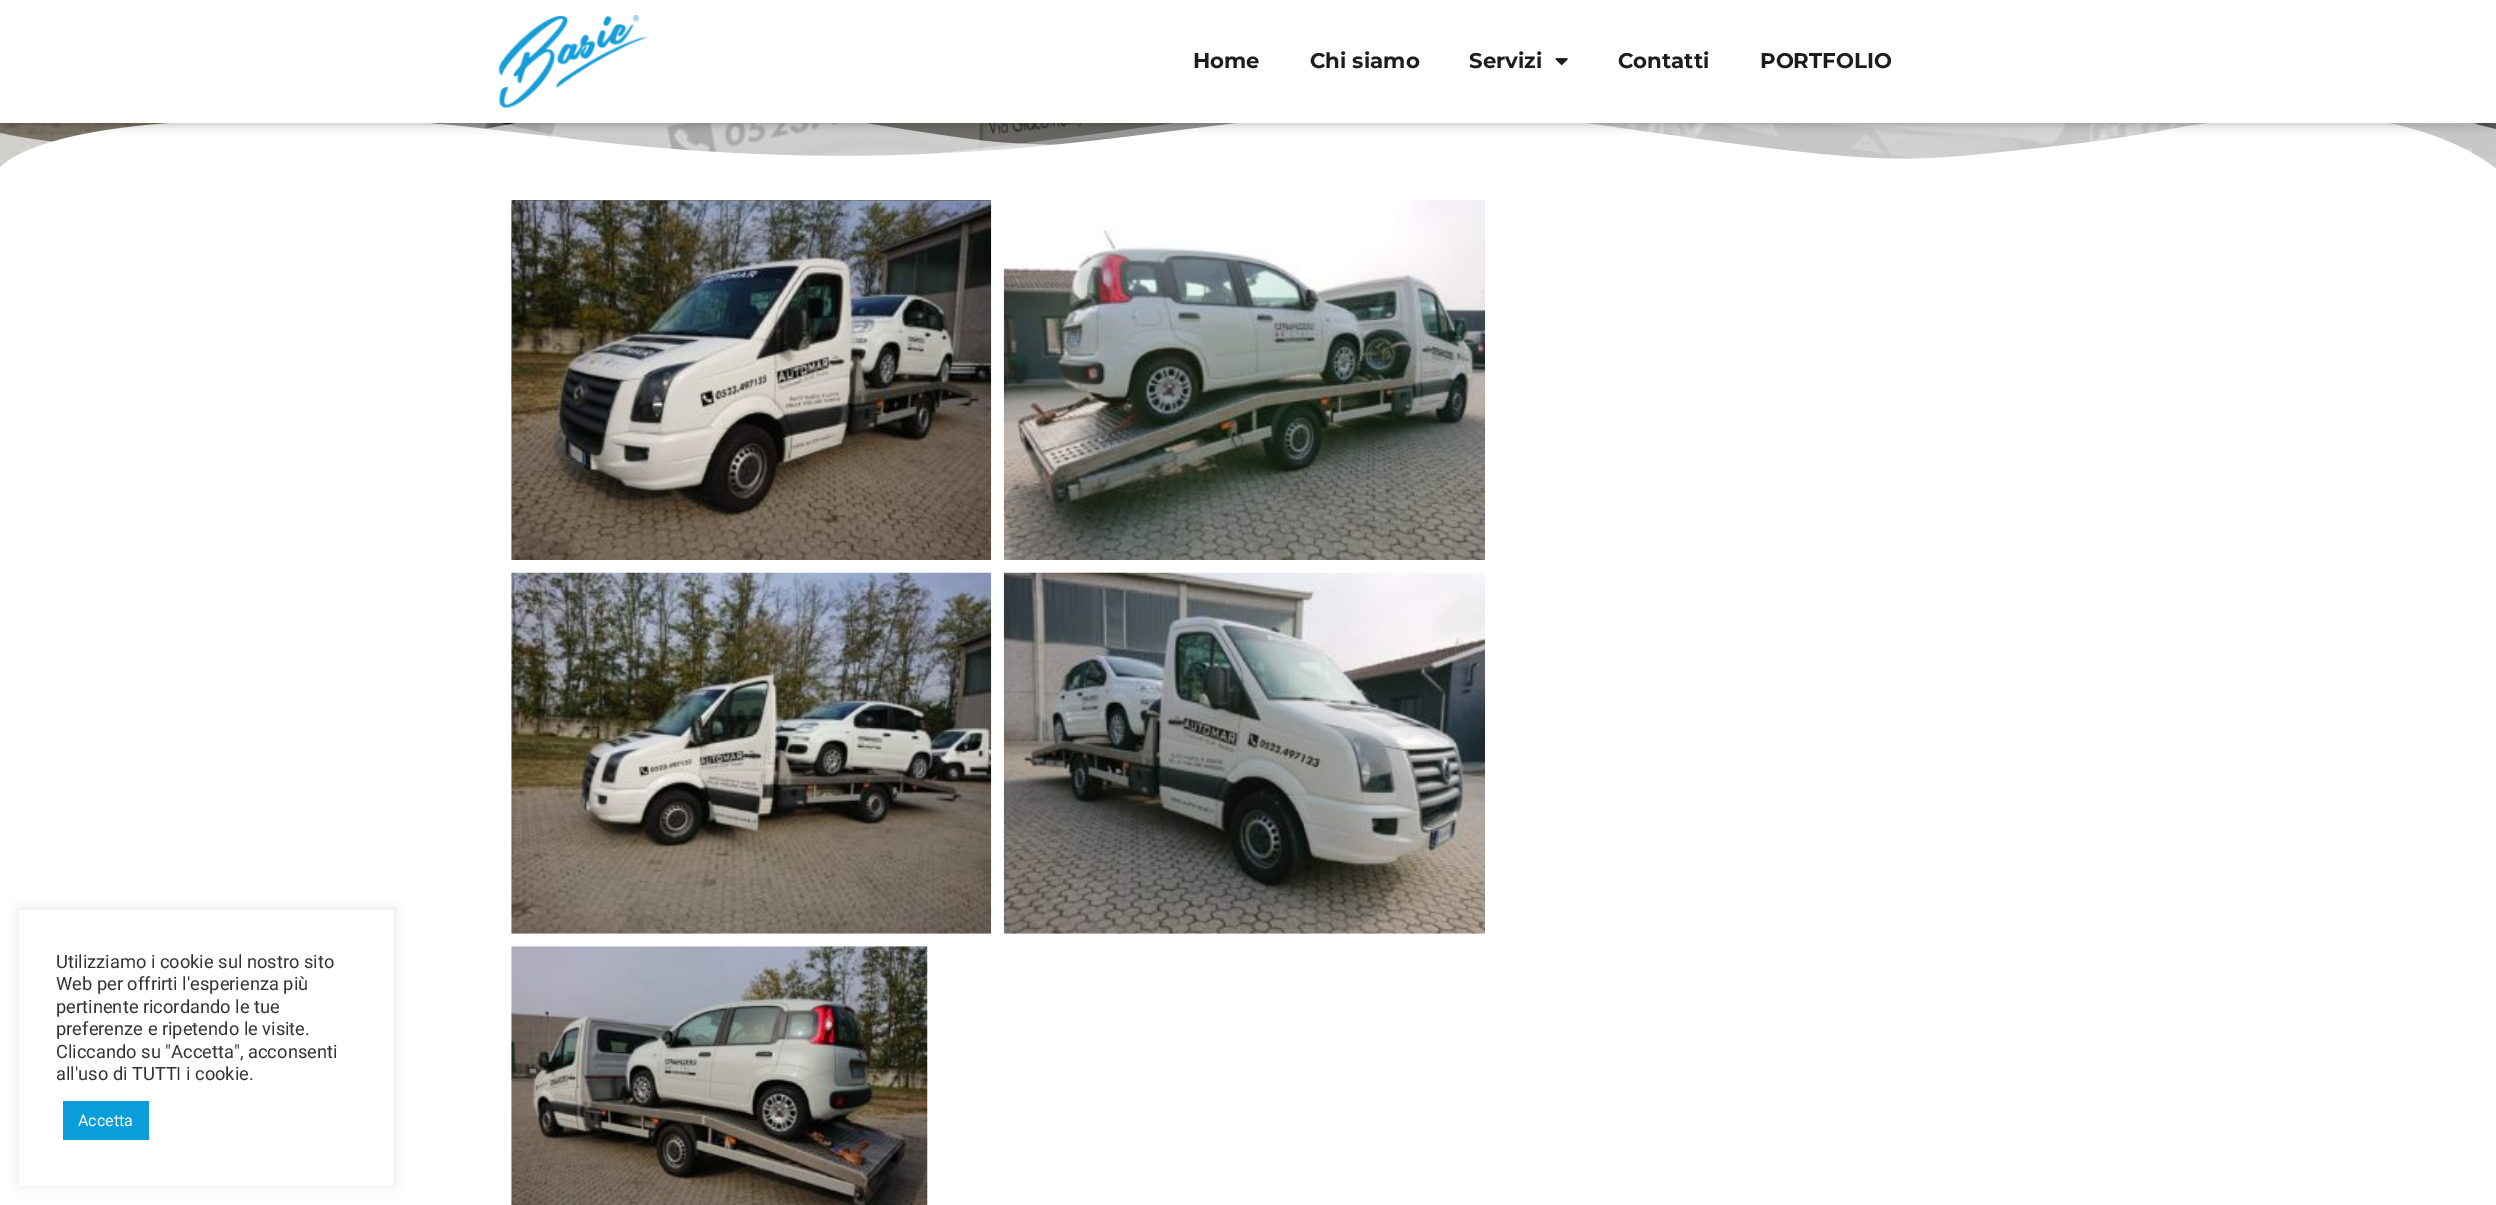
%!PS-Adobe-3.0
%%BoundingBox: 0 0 2496 1205
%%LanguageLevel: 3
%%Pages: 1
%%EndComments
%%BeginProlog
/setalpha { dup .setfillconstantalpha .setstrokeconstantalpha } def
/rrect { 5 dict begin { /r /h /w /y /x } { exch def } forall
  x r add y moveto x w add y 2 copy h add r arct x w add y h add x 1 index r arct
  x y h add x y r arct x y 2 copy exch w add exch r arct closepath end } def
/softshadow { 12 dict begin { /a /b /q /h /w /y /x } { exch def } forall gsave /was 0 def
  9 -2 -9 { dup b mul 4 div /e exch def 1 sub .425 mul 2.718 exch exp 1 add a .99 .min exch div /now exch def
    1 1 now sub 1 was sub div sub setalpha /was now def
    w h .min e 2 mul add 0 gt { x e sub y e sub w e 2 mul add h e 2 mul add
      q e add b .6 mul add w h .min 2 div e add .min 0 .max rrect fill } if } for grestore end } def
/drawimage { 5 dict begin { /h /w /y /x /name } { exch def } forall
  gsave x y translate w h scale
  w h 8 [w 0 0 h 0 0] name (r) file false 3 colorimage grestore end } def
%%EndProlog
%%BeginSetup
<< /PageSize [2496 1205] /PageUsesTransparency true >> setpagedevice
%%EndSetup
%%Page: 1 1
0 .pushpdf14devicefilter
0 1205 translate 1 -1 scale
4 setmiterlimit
1 setgray
0 0 2496 1205 rectfill
(images/3.raw) 0 123 2496 46 drawimage
(images/4.raw) 0 123 2496 46 drawimage
0 setgray
8 14 2481 107 0 6 0.5 softshadow
1 setgray
0 2 2496 121 rectfill
(images/1.raw) 498 15 150 93 drawimage
(images/2.raw) 1555 58 13 8 drawimage
(images/5.raw) 511 200 481 360 drawimage
(images/6.raw) 1003 200 482 360 drawimage
(images/7.raw) 511 572 481 362 drawimage
(images/8.raw) 1003 572 482 362 drawimage
(images/9.raw) 511 946 417 259 drawimage
0.675 0.671 0.671 setrgbcolor
19 909 375 276 0 6 0.3 softshadow
1 setgray
19 910 375 276 rectfill
0.039 0.616 0.851 setrgbcolor
63 1101 86 39 rectfill
/Montserrat-Bold [21.25 0 0 -21.25 0 0] selectfont
0.114 setgray
1193 68 moveto (Home) show
1310 68 moveto (Chi siamo) show
1469 68 moveto (Servizi) show
1618 68 moveto (Contatti) show
1760 68 moveto (PORTFOLIO) show
/Roboto-Regular [18.3 0 0 -18.3 0 0] selectfont
0.2 setgray
56 968 moveto (Utilizziamo i cookie sul nostro sito) show
56 990 moveto (Web per offrirti l'esperienza più) show
56 1013 moveto (pertinente ricordando le tue) show
56 1035 moveto (preferenze e ripetendo le visite.) show
56 1058 moveto (Cliccando su "Accetta", acconsenti) show
56 1080 moveto (all'uso di TUTTI i cookie.) show
/Roboto-Regular [16 0 0 -16 0 0] selectfont
1 setgray
78 1126 moveto (Accetta) show
.poppdf14devicefilter showpage
%%EOF
